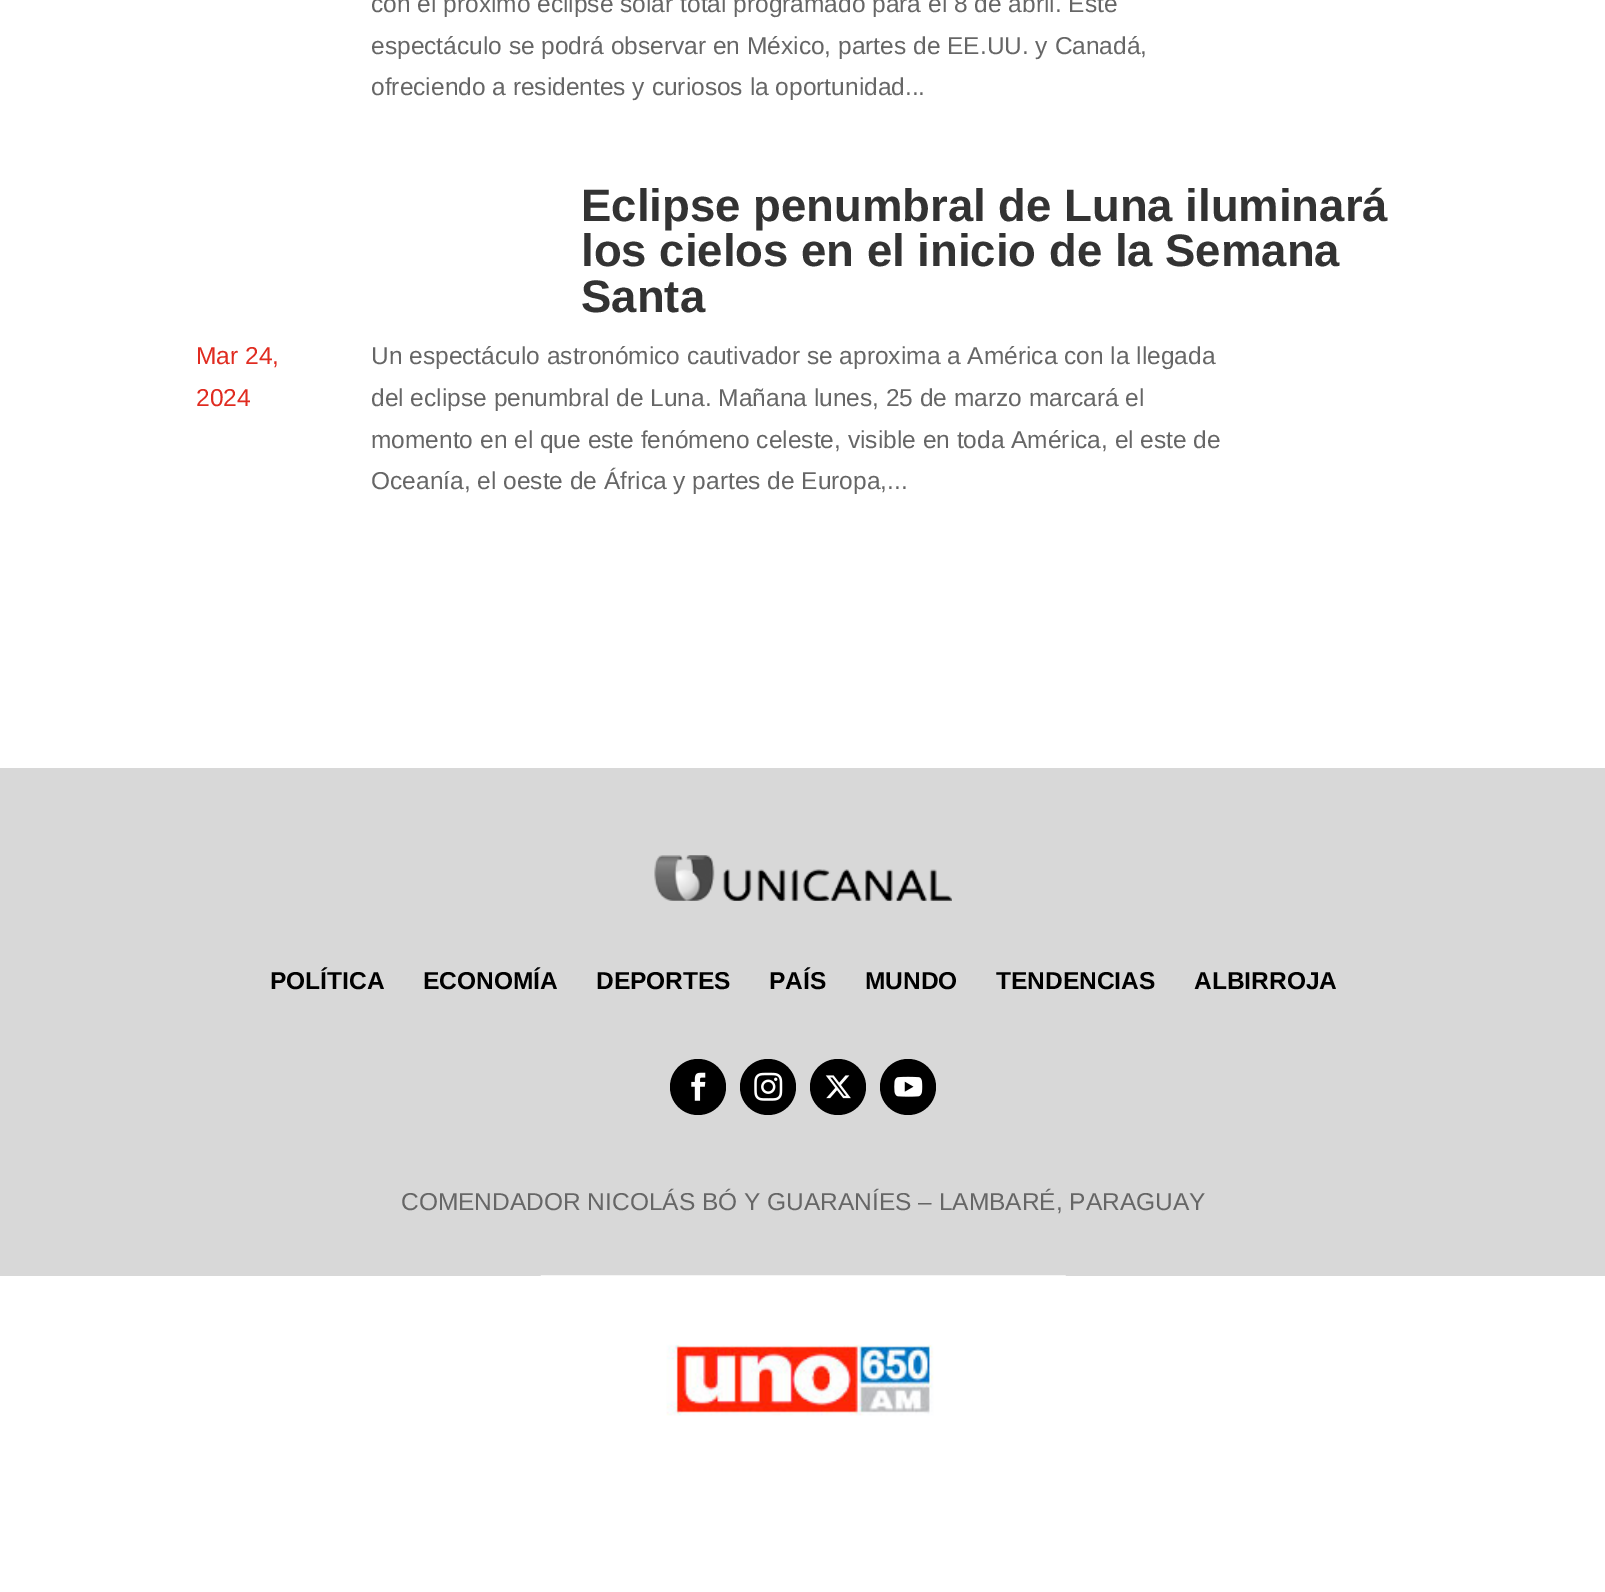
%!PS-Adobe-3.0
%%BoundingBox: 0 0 1605 1592
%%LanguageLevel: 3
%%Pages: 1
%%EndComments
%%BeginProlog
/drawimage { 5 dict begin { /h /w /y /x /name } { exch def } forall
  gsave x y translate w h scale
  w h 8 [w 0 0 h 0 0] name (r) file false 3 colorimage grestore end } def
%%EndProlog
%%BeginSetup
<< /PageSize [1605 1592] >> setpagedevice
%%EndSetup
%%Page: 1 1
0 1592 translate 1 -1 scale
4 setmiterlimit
1 setgray
0 0 1605 1592 rectfill
0.847 setgray
0 768 1605 508 rectfill
(images/1.raw) 654 855 298 46 drawimage
0 setgray
newpath 698 1087 28 0 360 arc closepath fill
(images/2.raw) 691 1072 15 29 drawimage
newpath 768 1087 28 0 360 arc closepath fill
(images/3.raw) 754 1072 29 29 drawimage
newpath 838 1087 28 0 360 arc closepath fill
(images/4.raw) 825 1075 26 24 drawimage
newpath 908 1087 28 0 360 arc closepath fill
(images/5.raw) 894 1076 29 21 drawimage
(images/6.raw) 540 1275 526 141 drawimage
/LiberationSans-Regular [24.5 0 0 -24.5 0 0] selectfont
0.4 setgray
371 12 moveto (con el próximo eclipse solar total programado para el 8 de abril. Este) show
371 54 moveto (espectáculo se podrá observar en México, partes de EE.UU. y Canadá,) show
371 95 moveto (ofreciendo a residentes y curiosos la oportunidad...) show
/LiberationSans-Bold [45.5 0 0 -45.5 0 0] selectfont
0.2 setgray
581 221 moveto (Eclipse penumbral de Luna iluminará) show
581 266 moveto (los cielos en el inicio de la Semana) show
581 312 moveto (Santa) show
/LiberationSans-Regular [24.5 0 0 -24.5 0 0] selectfont
0.878 0.169 0.125 setrgbcolor
196 364 moveto (Mar 24,) show
196 406 moveto (2024) show
0.4 setgray
371 364 moveto (Un espectáculo astronómico cautivador se aproxima a América con la llegada) show
371 406 moveto (del eclipse penumbral de Luna. Mañana lunes, 25 de marzo marcará el) show
371 448 moveto (momento en el que este fenómeno celeste, visible en toda América, el este de) show
371 489 moveto (Oceanía, el oeste de África y partes de Europa,...) show
/LiberationSans-Bold [24.5 0 0 -24.5 0 0] selectfont
0 setgray
270 989 moveto (POLÍTICA) show
423 989 moveto (ECONOMÍA) show
596 989 moveto (DEPORTES) show
769 989 moveto (PAÍS) show
865 989 moveto (MUNDO) show
996 989 moveto (TENDENCIAS) show
1194 989 moveto (ALBIRROJA) show
/LiberationSans-Regular [24.5 0 0 -24.5 0 0] selectfont
0.4 setgray
401 1210 moveto (COMENDADOR NICOLÁS BÓ Y GUARANÍES – LAMBARÉ, PARAGUAY) show
showpage
%%EOF
